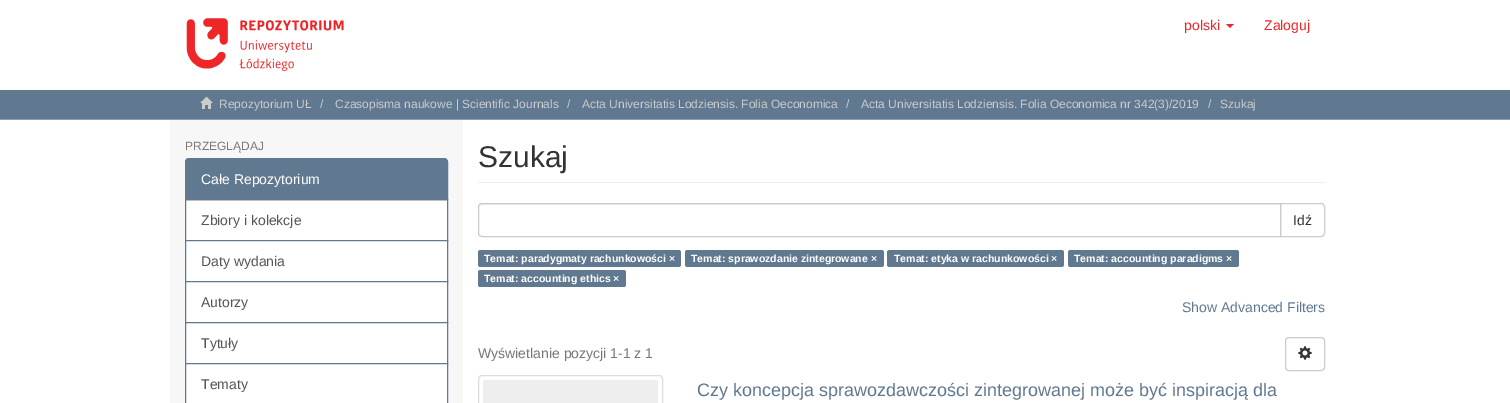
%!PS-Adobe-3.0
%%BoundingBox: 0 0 1510 403
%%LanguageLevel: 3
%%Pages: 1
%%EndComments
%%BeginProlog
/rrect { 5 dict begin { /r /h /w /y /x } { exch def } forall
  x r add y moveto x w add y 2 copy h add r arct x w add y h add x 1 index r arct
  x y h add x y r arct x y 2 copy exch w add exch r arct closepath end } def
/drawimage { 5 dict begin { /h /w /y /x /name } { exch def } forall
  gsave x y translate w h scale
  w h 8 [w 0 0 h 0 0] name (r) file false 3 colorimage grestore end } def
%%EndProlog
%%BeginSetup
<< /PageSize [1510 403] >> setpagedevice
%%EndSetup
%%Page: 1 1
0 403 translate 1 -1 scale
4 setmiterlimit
1 setgray
0 0 1510 403 rectfill
(images/1.raw) 186 18 158 53 drawimage
0.933 0.149 0.157 setrgbcolor
newpath 1226 24 moveto 1234 24 lineto 1230 28 lineto closepath fill
0.376 0.471 0.565 setrgbcolor
0 90 1510 29 rectfill
0.545 0.62 0.698 setrgbcolor
0 119 1510 1 rectfill
(images/2.raw) 200 96 13 13 drawimage
0.969 setgray
170 120 293 283 rectfill
1 setgray
newpath 185.5 199.5 moveto 447.5 199.5 lineto 447.5 240.5 lineto 185.5 240.5 lineto closepath gsave fill grestore
0.376 0.471 0.565 setrgbcolor
stroke
newpath 189 158.5 moveto 444 158.5 lineto 446 158.5 447.5 160 447.5 162 curveto 447.5 199.5 lineto 185.5 199.5 lineto 185.5 162 lineto 185.5 160 187 158.5 189 158.5 curveto closepath gsave fill grestore
stroke
1 setgray
newpath 185.5 240.5 moveto 447.5 240.5 lineto 447.5 281.5 lineto 185.5 281.5 lineto closepath gsave fill grestore
0.376 0.471 0.565 setrgbcolor
stroke
1 setgray
newpath 185.5 281.5 moveto 447.5 281.5 lineto 447.5 322.5 lineto 185.5 322.5 lineto closepath gsave fill grestore
0.376 0.471 0.565 setrgbcolor
stroke
1 setgray
newpath 185.5 322.5 moveto 447.5 322.5 lineto 447.5 363.5 lineto 185.5 363.5 lineto closepath gsave fill grestore
0.376 0.471 0.565 setrgbcolor
stroke
1 setgray
newpath 185.5 363.5 moveto 447.5 363.5 lineto 447.5 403.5 lineto 185.5 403.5 lineto closepath gsave fill grestore
0.376 0.471 0.565 setrgbcolor
stroke
0.933 setgray
478 182 847 1 rectfill
0.8 setgray
newpath 1280.5 203.5 moveto 1321 203.5 lineto 1323 203.5 1324.5 205 1324.5 207 curveto 1324.5 233 lineto 1324.5 235 1323 236.5 1321 236.5 curveto 1280.5 236.5 lineto closepath stroke
1 setgray
newpath 482 203 moveto 1281 203 lineto 1281 237 lineto 482 237 lineto 480 237 478 235 478 233 curveto 478 207 lineto 478 205 480 203 482 203 curveto closepath fill
0.925 setgray
newpath 482 205 moveto 1280 205 lineto 1280 204 lineto 482 204 lineto 480 204 479 206 479 208 curveto 479 206 480 205 482 205 curveto closepath fill
0.8 setgray
newpath 482 203.5 moveto 1280.5 203.5 lineto 1280.5 236.5 lineto 482 236.5 lineto 480 236.5 478.5 235 478.5 233 curveto 478.5 207 lineto 478.5 205 480 203.5 482 203.5 curveto closepath stroke
0.376 0.471 0.565 setrgbcolor
478 250 203 17 2.5 rrect fill
685 250 199 17 2.5 rrect fill
887 250 177 17 2.5 rrect fill
1068 250 171 17 2.5 rrect fill
478 270 148 17 2.5 rrect fill
0.8 setgray
1285.5 337.5 39 33 3.5 rrect stroke
(images/3.raw) 1298 346 14 14 drawimage
0.867 setgray
478.5 375.5 184 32 3.5 rrect stroke
0.933 setgray
483 380 175 23 rectfill
/LiberationSans-Regular [14 0 0 -14 0 0] selectfont
0.933 0.149 0.157 setrgbcolor
1184 30 moveto (polski) show
1264 30 moveto (Zaloguj) show
/LiberationSans-Regular [12 0 0 -12 0 0] selectfont
0.8 setgray
219 108 moveto (Repozytorium UŁ) show
320 108 moveto (/) show
335 108 moveto (Czasopisma naukowe | Scientific Journals) show
567 108 moveto (/) show
582 108 moveto (Acta Universitatis Lodziensis. Folia Oeconomica) show
846 108 moveto (/) show
861 108 moveto (Acta Universitatis Lodziensis. Folia Oeconomica nr 342\(3\)/2019) show
1208 108 moveto (/) show
1220 108 moveto (Szukaj) show
0.467 setgray
185 150 moveto (PRZEGLĄDAJ) show
/LiberationSans-Regular [14 0 0 -14 0 0] selectfont
1 setgray
201 184 moveto (Całe Repozytorium) show
0.333 setgray
201 225 moveto (Zbiory i kolekcje) show
201 266 moveto (Daty wydania) show
201 307 moveto (Autorzy) show
201 348 moveto (Tytuły) show
201 389 moveto (Tematy) show
/LiberationSans-Regular [30 0 0 -30 0 0] selectfont
0.2 setgray
478 167 moveto (Szukaj) show
/LiberationSans-Regular [14 0 0 -14 0 0] selectfont
1293 225 moveto (Idź) show
/LiberationSans-Bold [10.5 0 0 -10.5 0 0] selectfont
1 setgray
484 262 moveto (Temat: paradygmaty rachunkowości ×) show
691 262 moveto (Temat: sprawozdanie zintegrowane ×) show
894 262 moveto (Temat: etyka w rachunkowości ×) show
1074 262 moveto (Temat: accounting paradigms ×) show
484 282 moveto (Temat: accounting ethics ×) show
/LiberationSans-Regular [14 0 0 -14 0 0] selectfont
0.376 0.471 0.565 setrgbcolor
1182 312 moveto (Show Advanced Filters) show
0.467 setgray
478 358 moveto (Wyświetlanie pozycji 1-1 z 1) show
/LiberationSans-Regular [18 0 0 -18 0 0] selectfont
0.376 0.471 0.565 setrgbcolor
697 396 moveto (Czy koncepcja sprawozdawczości zintegrowanej może być inspiracją dla) show
showpage
%%EOF
